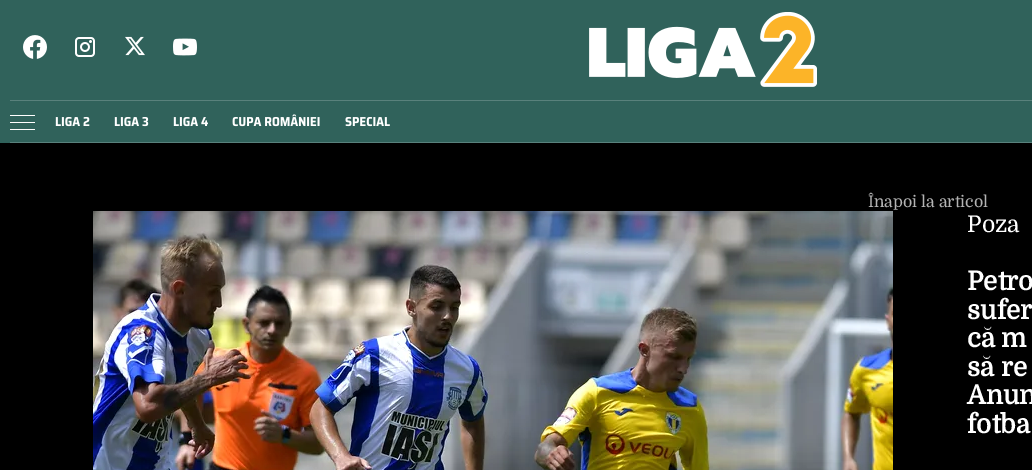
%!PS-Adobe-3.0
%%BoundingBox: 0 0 1032 470
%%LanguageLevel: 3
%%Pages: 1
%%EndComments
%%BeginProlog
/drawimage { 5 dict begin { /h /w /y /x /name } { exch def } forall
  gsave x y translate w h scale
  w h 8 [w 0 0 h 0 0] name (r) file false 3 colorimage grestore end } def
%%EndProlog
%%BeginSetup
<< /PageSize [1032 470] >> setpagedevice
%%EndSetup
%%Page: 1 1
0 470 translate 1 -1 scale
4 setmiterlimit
0.188 0.384 0.357 setrgbcolor
0 0 1032 470 rectfill
(images/1.raw) 23 35 24 24 drawimage
(images/2.raw) 75 37 20 20 drawimage
(images/3.raw) 125 36 20 20 drawimage
(images/4.raw) 173 38 24 18 drawimage
(images/5.raw) 589 12 228 75 drawimage
0.349 0.506 0.486 setrgbcolor
10 100 1022 1 rectfill
10 142 1022 1 rectfill
(images/6.raw) 55 116 35 11 drawimage
(images/7.raw) 114 117 35 10 drawimage
(images/8.raw) 173 117 35 10 drawimage
(images/9.raw) 232 114 88 13 drawimage
(images/10.raw) 345 117 45 10 drawimage
1 setgray
10 122 25 1 rectfill
10 115 25 1 rectfill
10 129 25 1 rectfill
0 setgray
0 143 1032 327 rectfill
(images/11.raw) 93 211 800 259 drawimage
/Domine-Regular [16 0 0 -16 0 0] selectfont
0.702 setgray
868 207 moveto (Înapoi la articol) show
/Domine-Regular [23 0 0 -23 0 0] selectfont
1 setgray
967 232 moveto (Poza) show
/Domine-Bold [26 0 0 -26 0 0] selectfont
967 290 moveto (Petro) show
967 319 moveto (sufer) show
967 347 moveto (că m) show
967 376 moveto (să re) show
967 404 moveto (Anun) show
967 433 moveto (fotba) show
showpage
%%EOF
